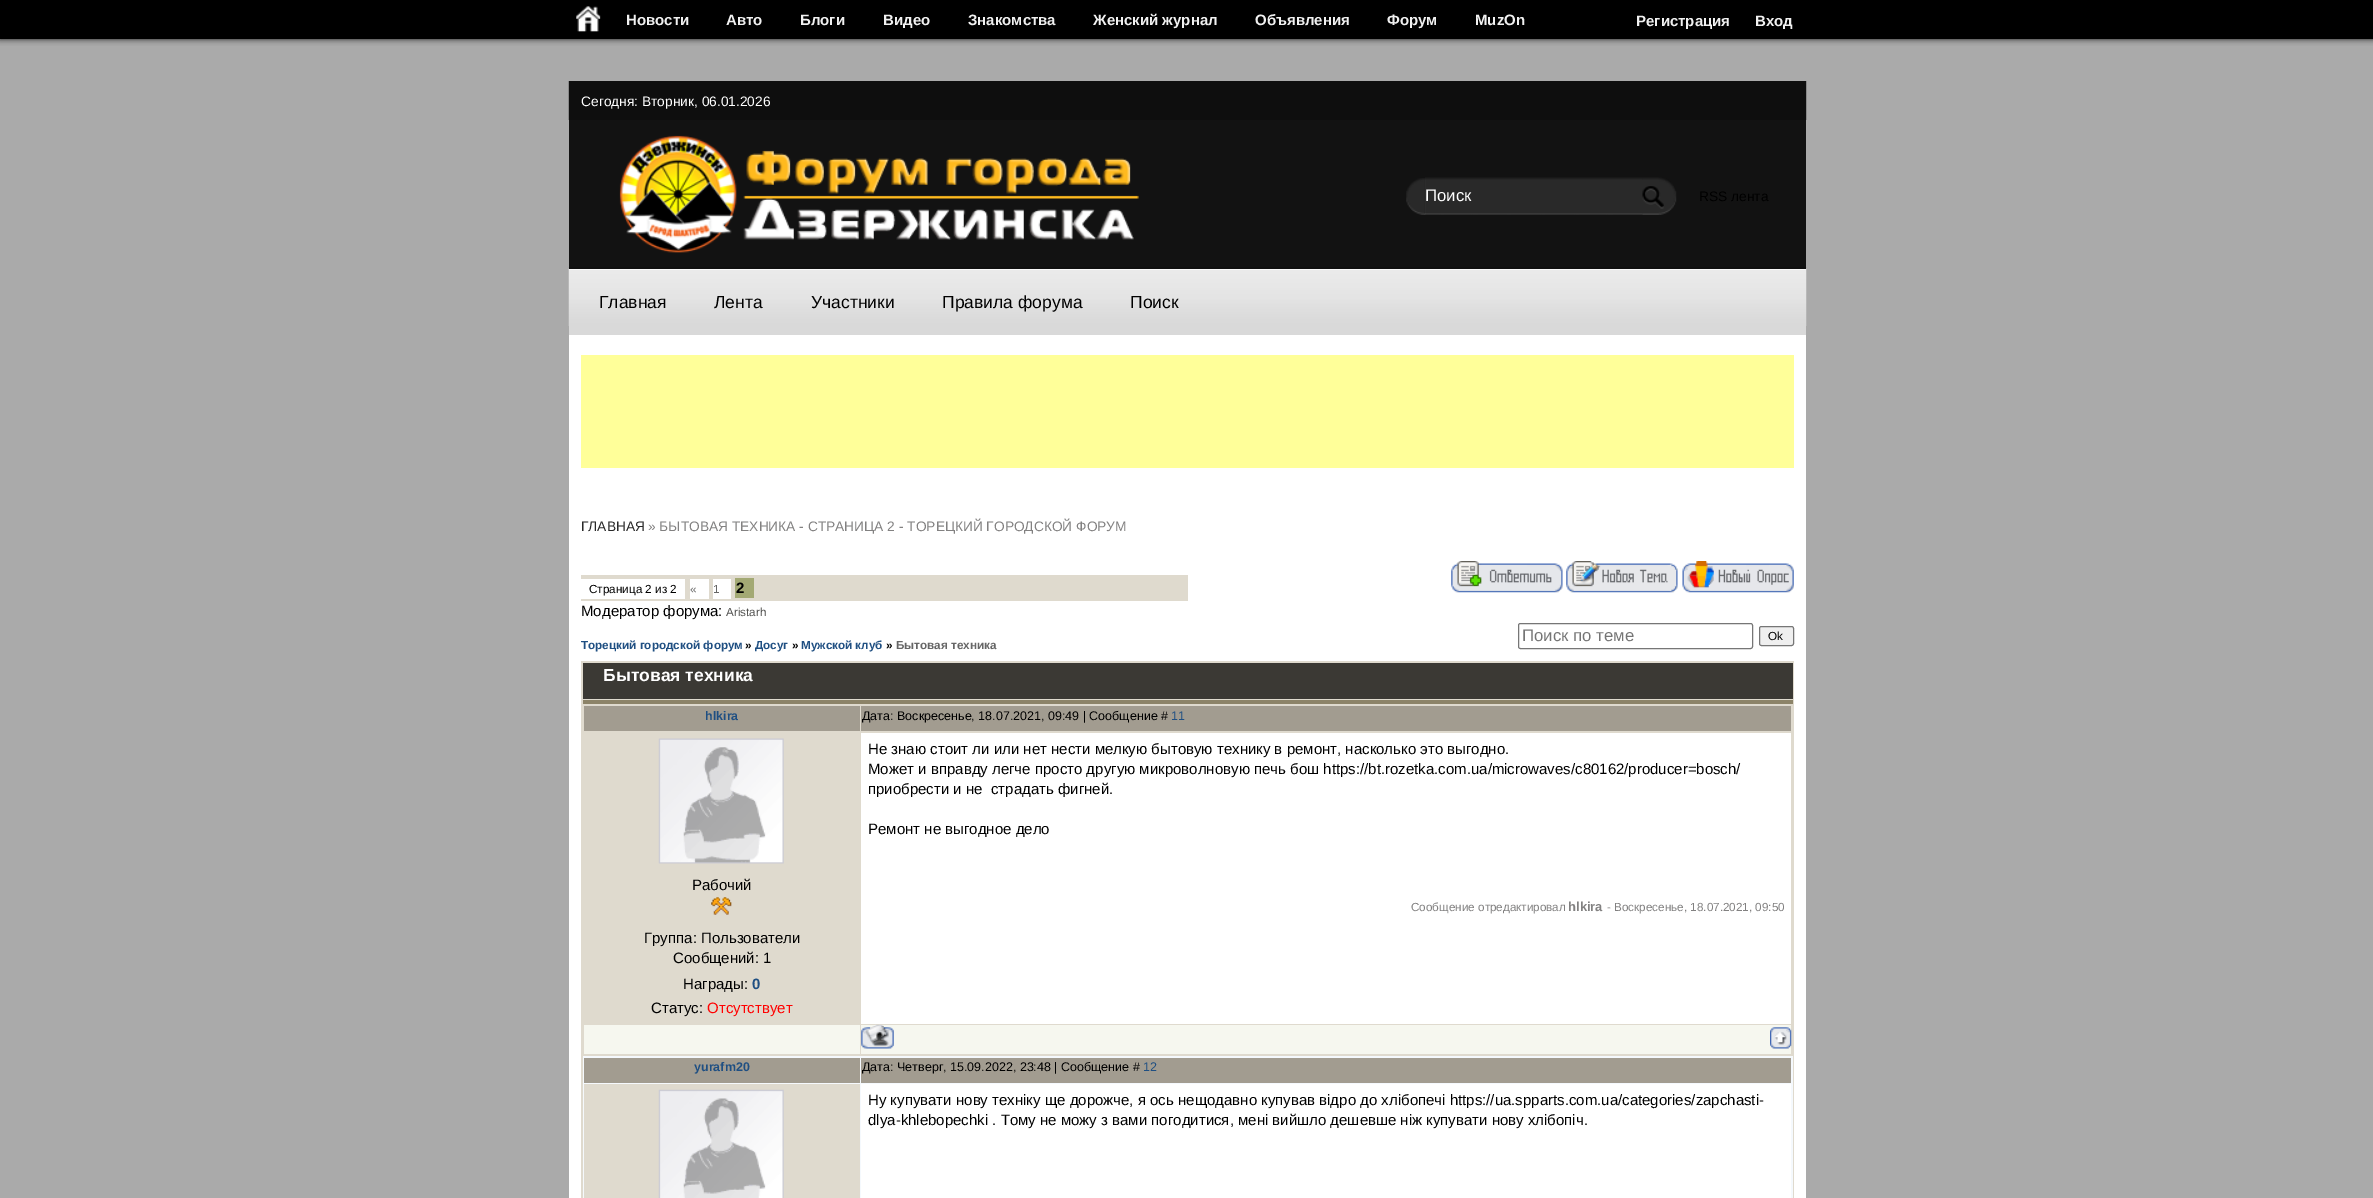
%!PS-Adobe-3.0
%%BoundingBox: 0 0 2373 1198
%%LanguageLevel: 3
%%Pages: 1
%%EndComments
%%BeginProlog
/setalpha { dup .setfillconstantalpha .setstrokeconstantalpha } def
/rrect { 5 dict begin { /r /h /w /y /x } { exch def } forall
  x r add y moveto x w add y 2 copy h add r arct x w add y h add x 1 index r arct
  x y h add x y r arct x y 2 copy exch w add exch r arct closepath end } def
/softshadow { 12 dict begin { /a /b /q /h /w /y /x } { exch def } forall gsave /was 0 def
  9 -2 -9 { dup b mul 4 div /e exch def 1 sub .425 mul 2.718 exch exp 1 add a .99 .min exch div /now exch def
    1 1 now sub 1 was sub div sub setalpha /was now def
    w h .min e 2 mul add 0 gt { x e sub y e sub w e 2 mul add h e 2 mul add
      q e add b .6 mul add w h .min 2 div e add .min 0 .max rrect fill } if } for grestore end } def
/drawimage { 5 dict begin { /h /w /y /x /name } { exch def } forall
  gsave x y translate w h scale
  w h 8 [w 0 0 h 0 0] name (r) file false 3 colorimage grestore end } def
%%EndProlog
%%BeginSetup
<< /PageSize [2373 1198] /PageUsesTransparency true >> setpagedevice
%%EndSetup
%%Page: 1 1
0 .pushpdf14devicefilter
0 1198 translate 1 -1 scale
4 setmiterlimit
0.667 setgray
0 0 2373 1198 rectfill
0.533 setgray
568 81 1239 39 rectfill
0.067 setgray
0 0 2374 39 0 3 1 softshadow
0 setgray
0 0 2373 39 rectfill
(images/1.raw) 576 6 25 26 drawimage
1 setgray
569 335 1237 863 rectfill
0.071 setgray
569 120 1237 3 rectfill
0.055 setgray
569 81 1237 39 rectfill
(images/8.raw) 568 268 1239 58 drawimage
0.071 setgray
569 123 1237 146 rectfill
(images/2.raw) 568 267 1239 2 drawimage
(images/3.raw) 619 135 520 118 drawimage
(images/4.raw) 1406 178 20 37 drawimage
(images/5.raw) 1425 177 218 38 drawimage
(images/6.raw) 1642 177 35 38 drawimage
(images/7.raw) 1642 186 22 23 drawimage
0.851 setgray
569 326 1237 9 rectfill
1 1 0.6 setrgbcolor
581 355 1213 113 rectfill
0.875 0.855 0.808 setrgbcolor
581 575 607 26 rectfill
1 setgray
581 579 104 20 rectfill
690 579 19 20 rectfill
713 579 18 20 rectfill
0.639 0.663 0.455 setrgbcolor
735 578 19 20 rectfill
(images/9.raw) 1451 561 112 32 drawimage
(images/10.raw) 1566 561 112 32 drawimage
(images/11.raw) 1682 561 112 32 drawimage
0.463 setgray
1518.5 623.5 234 25 2 rrect stroke
0.937 setgray
1759.5 626.5 34 19 2 rrect gsave fill grestore
0.463 setgray
stroke
0.875 0.855 0.808 setrgbcolor
581 661 1213 537 rectfill
0.231 0.224 0.204 setrgbcolor
583 663 1210 36 rectfill
0.549 0.514 0.408 setrgbcolor
583 700 1210 4 rectfill
0.635 0.612 0.565 setrgbcolor
584 706 276 25 rectfill
861 706 930 25 rectfill
1 setgray
861 733 930 291 rectfill
(images/12.raw) 658 738 126 126 drawimage
(images/13.raw) 711 897 21 18 drawimage
0.965 0.969 0.937 setrgbcolor
584 1025 276 29 rectfill
861 1025 930 29 rectfill
(images/14.raw) 861 1024 33 25 drawimage
(images/15.raw) 1770 1027 22 22 drawimage
0.961 0.976 0.992 setrgbcolor
583 1056 1210 142 rectfill
0.635 0.612 0.565 setrgbcolor
584 1058 276 25 rectfill
861 1058 930 25 rectfill
0.875 0.855 0.808 setrgbcolor
584 1084 276 114 rectfill
(images/16.raw) 658 1089 126 109 drawimage
1 setgray
861 1084 930 114 rectfill
/LiberationSans-Bold [15 0 0 -15 0 0] selectfont
0.945 setgray
626 25 moveto (Новости) show
726 25 moveto (Авто) show
800 25 moveto (Блоги) show
883 25 moveto (Видео) show
968 25 moveto (Знакомства) show
1093 25 moveto (Женский журнал) show
1255 25 moveto (Объявления) show
1387 25 moveto (Форум) show
1475 25 moveto (MuzOn) show
1636 26 moveto (Регистрация) show
1755 26 moveto (Вход) show
/LiberationSans-Regular [13.75 0 0 -13.75 0 0] selectfont
1 setgray
581 106 moveto (Сегодня: Вторник, 06.01.2026) show
/LiberationSans-Regular [16.75 0 0 -16.75 0 0] selectfont
1425 201 moveto (Поиск) show
/LiberationSans-Regular [13.75 0 0 -13.75 0 0] selectfont
0 setgray
1699 201 moveto (RSS лента) show
/LiberationSans-Regular [17.5 0 0 -17.5 0 0] selectfont
599 308 moveto (Главная) show
714 308 moveto (Лента) show
811 308 moveto (Участники) show
942 308 moveto (Правила форума) show
1130 308 moveto (Поиск) show
/LiberationSans-Regular [13.75 0 0 -13.75 0 0] selectfont
0.157 setgray
581 531 moveto (ГЛАВНАЯ) show
0.51 0.506 0.506 setrgbcolor
648 531 moveto (» БЫТОВАЯ ТЕХНИКА - СТРАНИЦА 2 - ТОРЕЦКИЙ ГОРОДСКОЙ ФОРУМ) show
/LiberationSans-Regular [11.7 0 0 -11.7 0 0] selectfont
0 setgray
589 593 moveto (Страница 2 из 2) show
0.4 setgray
690 593 moveto («) show
713 593 moveto (1) show
/LiberationSans-Bold [15 0 0 -15 0 0] selectfont
0 setgray
736 593 moveto (2) show
/LiberationSans-Regular [15 0 0 -15 0 0] selectfont
581 616 moveto (Модератор форума:) show
/LiberationSans-Regular [11.7 0 0 -11.7 0 0] selectfont
0.325 0.325 0.318 setrgbcolor
726 616 moveto (Aristarh) show
/LiberationSans-Regular [16.75 0 0 -16.75 0 0] selectfont
0.459 setgray
1522 641 moveto (Поиск по теме) show
/LiberationSans-Regular [11.7 0 0 -11.7 0 0] selectfont
0 setgray
1768 640 moveto (Ok) show
/LiberationSans-Bold [11.7 0 0 -11.7 0 0] selectfont
0.122 0.31 0.51 setrgbcolor
581 649 moveto (Торецкий городской форум) show
0 setgray
745 649 moveto (») show
0.122 0.31 0.51 setrgbcolor
755 649 moveto (Досуг) show
0 setgray
792 649 moveto (») show
0.122 0.31 0.51 setrgbcolor
801 649 moveto (Мужской клуб) show
0 setgray
886 649 moveto (») show
0.4 setgray
896 649 moveto (Бытовая техника) show
/LiberationSans-Bold [17.5 0 0 -17.5 0 0] selectfont
1 setgray
603 681 moveto (Бытовая техника) show
/LiberationSans-Bold [12.5 0 0 -12.5 0 0] selectfont
0.122 0.31 0.51 setrgbcolor
705 720 moveto (hlkira) show
/LiberationSans-Regular [12.5 0 0 -12.5 0 0] selectfont
0 setgray
862 720 moveto (Дата: Воскресенье, 18.07.2021, 09:49 | Сообщение #) show
0.122 0.31 0.51 setrgbcolor
1171 720 moveto (11) show
/LiberationSans-Regular [15 0 0 -15 0 0] selectfont
0 setgray
868 754 moveto (Не знаю стоит ли или нет нести мелкую бытовую технику в ремонт, насколько это выгодно.) show
868 774 moveto (Может и вправду легче просто другую микроволновую печь бош https://bt.rozetka.com.ua/microwaves/c80162/producer=bosch/) show
868 794 moveto (приобрести и не  страдать фигней.) show
868 834 moveto (Ремонт не выгодное дело) show
/LiberationSans-Regular [11.7 0 0 -11.7 0 0] selectfont
0.51 0.506 0.506 setrgbcolor
1411 911 moveto (Сообщение отредактировал) show
/LiberationSans-Bold [13 0 0 -13 0 0] selectfont
1568 911 moveto (hlkira) show
/LiberationSans-Regular [11.7 0 0 -11.7 0 0] selectfont
1607 911 moveto (- Воскресенье, 18.07.2021, 09:50) show
/LiberationSans-Regular [15 0 0 -15 0 0] selectfont
0 setgray
692 890 moveto (Рабочий) show
644 943 moveto (Группа: Пользователи) show
673 963 moveto (Сообщений: 1) show
683 989 moveto (Награды:) show
/LiberationSans-Bold [15 0 0 -15 0 0] selectfont
0.122 0.31 0.51 setrgbcolor
752 989 moveto (0) show
/LiberationSans-Regular [15 0 0 -15 0 0] selectfont
0 setgray
651 1013 moveto (Статус:) show
1 0 0 setrgbcolor
707 1013 moveto (Отсутствует) show
/LiberationSans-Bold [12.5 0 0 -12.5 0 0] selectfont
0.122 0.31 0.51 setrgbcolor
694 1071 moveto (yurafm20) show
/LiberationSans-Regular [12.5 0 0 -12.5 0 0] selectfont
0 setgray
862 1071 moveto (Дата: Четверг, 15.09.2022, 23:48 | Сообщение #) show
0.122 0.31 0.51 setrgbcolor
1143 1071 moveto (12) show
/LiberationSans-Regular [15 0 0 -15 0 0] selectfont
0 setgray
868 1105 moveto (Ну купувати нову техніку ще дорожче, я ось нещодавно купував відро до хлібопечі https://ua.spparts.com.ua/categories/zapchasti-) show
868 1125 moveto (dlya-khlebopechki . Тому не можу з вами погодитися, мені вийшло дешевше ніж купувати нову хлібопіч.) show
.poppdf14devicefilter showpage
%%EOF
